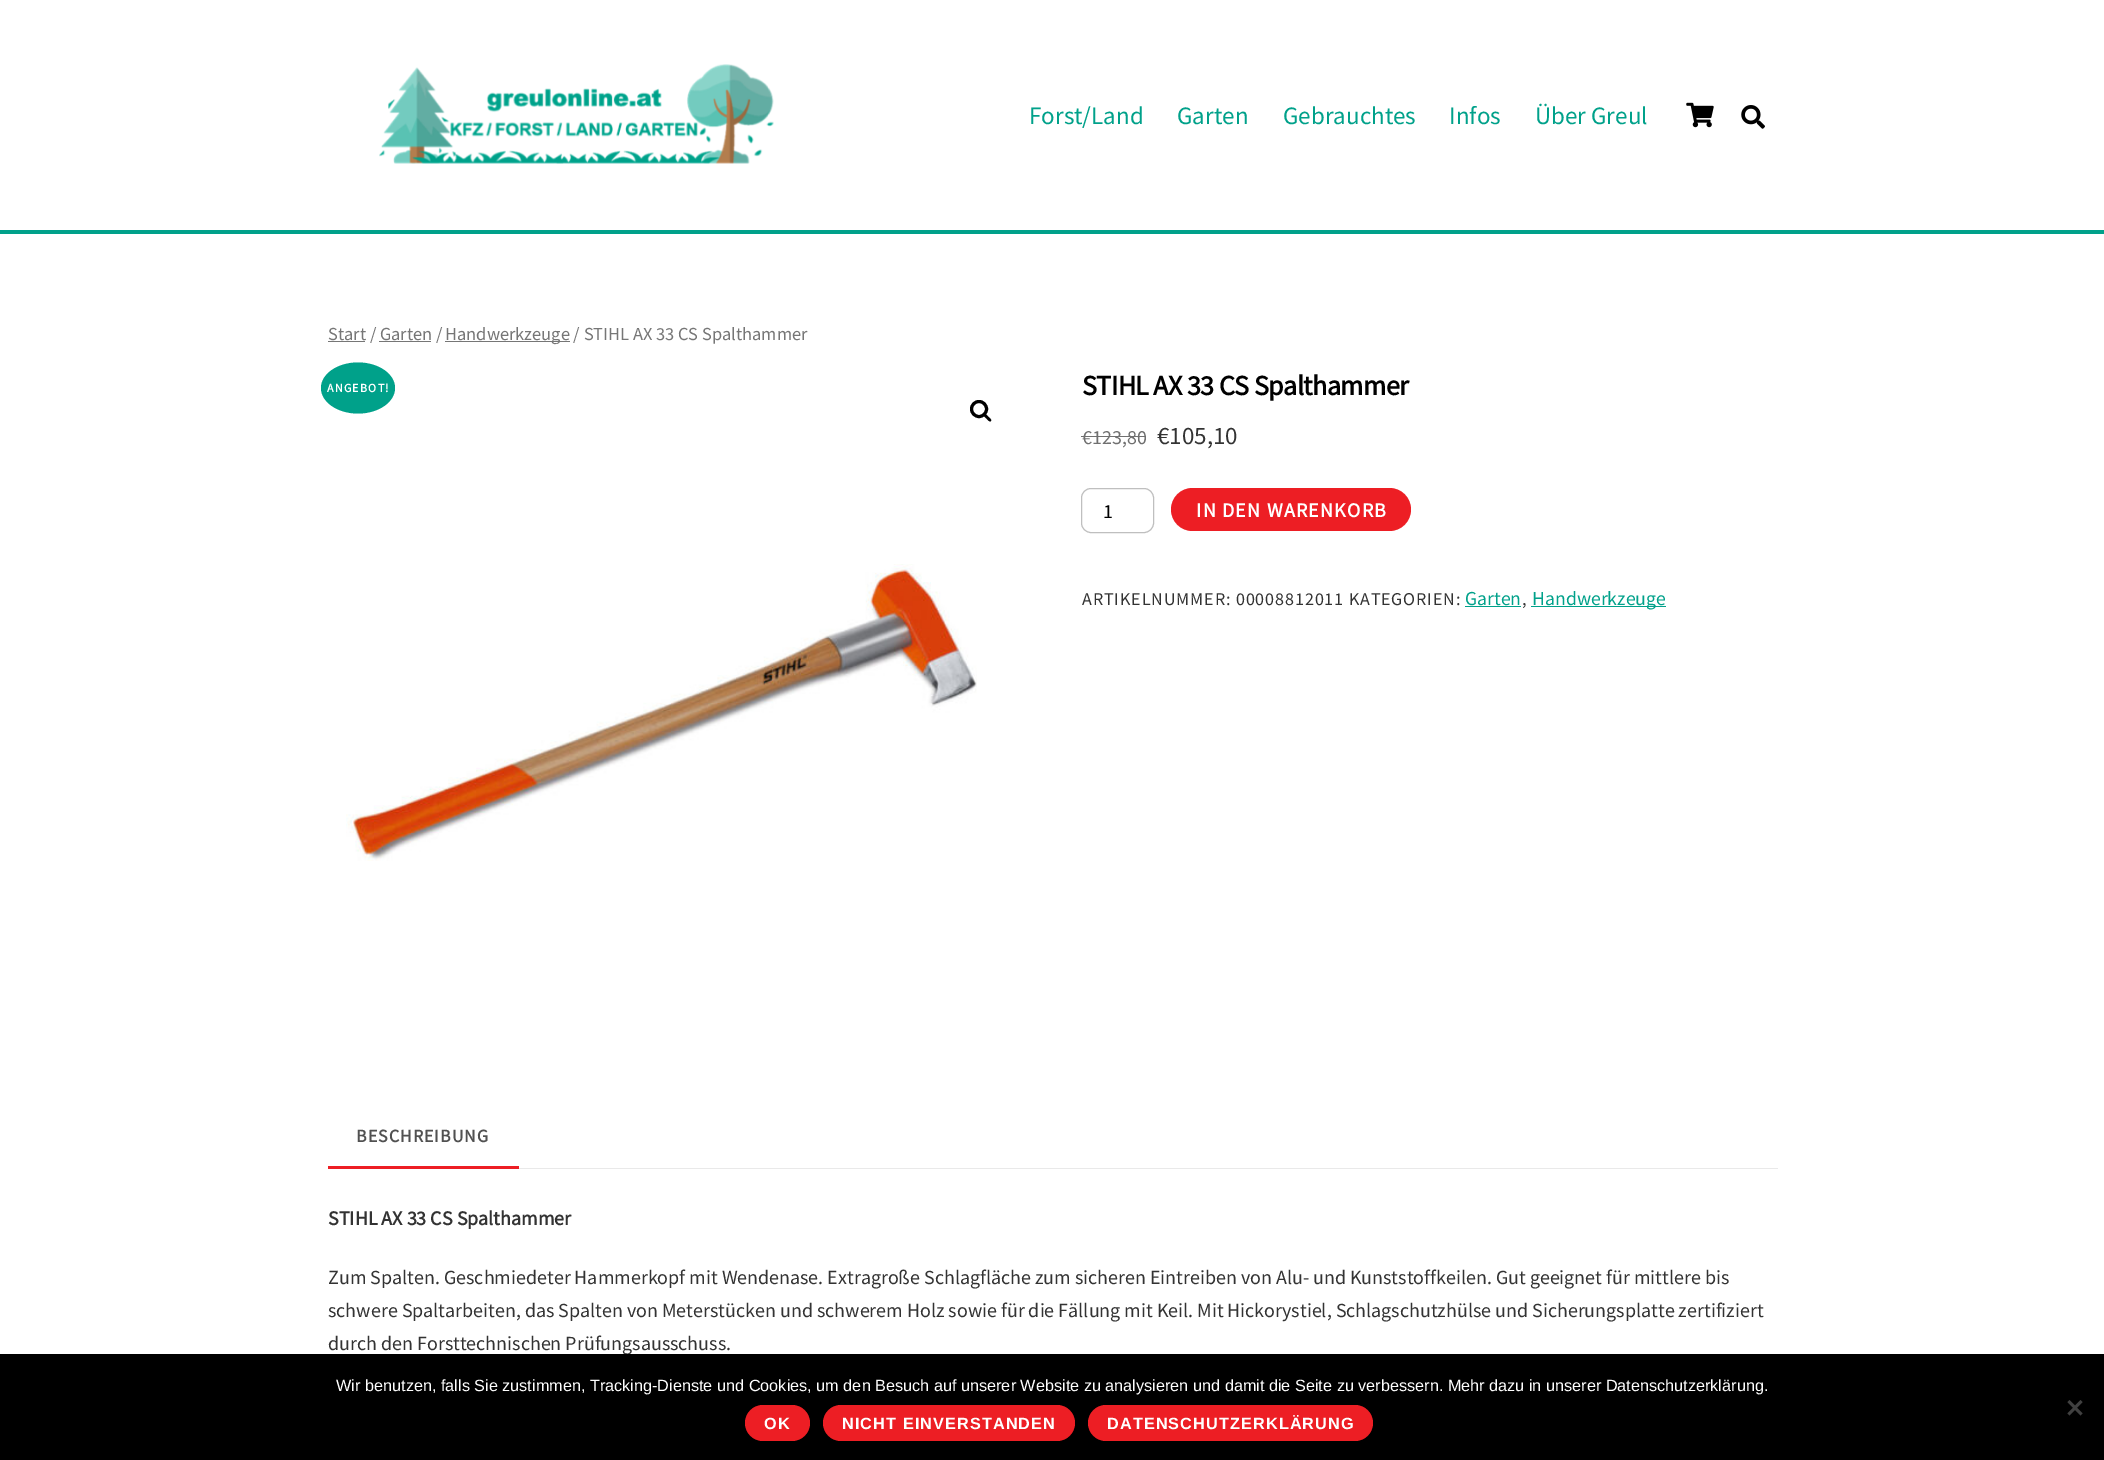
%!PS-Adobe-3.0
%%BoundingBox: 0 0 2104 1460
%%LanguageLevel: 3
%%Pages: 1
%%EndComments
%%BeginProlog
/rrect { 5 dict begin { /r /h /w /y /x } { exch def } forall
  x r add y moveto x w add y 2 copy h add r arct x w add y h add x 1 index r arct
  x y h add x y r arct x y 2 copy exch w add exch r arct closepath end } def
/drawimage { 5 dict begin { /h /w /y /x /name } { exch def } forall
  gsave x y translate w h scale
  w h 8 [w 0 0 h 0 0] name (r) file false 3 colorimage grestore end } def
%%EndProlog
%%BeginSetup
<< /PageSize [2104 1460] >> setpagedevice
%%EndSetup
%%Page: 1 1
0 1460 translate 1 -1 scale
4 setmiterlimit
1 setgray
0 0 2104 1460 rectfill
0 0.631 0.541 setrgbcolor
0 230 2104 4 rectfill
(images/1.raw) 379 64 395 100 drawimage
(images/2.raw) 1686 102 28 26 drawimage
(images/3.raw) 1741 105 24 24 drawimage
0.463 setgray
328 341 37 1 rectfill
445 341 125 1 rectfill
379 341 52 1 rectfill
0 0.631 0.541 setrgbcolor
newpath 358 362.5 moveto 378.5 362.5 395 374 395 388 curveto 395 402 378.5 413.5 358 413.5 curveto 337.5 413.5 321 402 321 388 curveto 321 374 337.5 362.5 358 362.5 curveto closepath fill
(images/4.raw) 346 564 631 297 drawimage
0 setgray
3 setlinewidth
newpath 979 409 7.5 0 360 arc closepath stroke
newpath 983.5 414 moveto 985 412.5 987.5 416 988 416.5 curveto 989 417.5 992 419.5 991 421 curveto 989.5 422.5 987 419 986.5 418.5 curveto 985.5 417.5 982.5 415.5 983.5 414 curveto closepath fill
0.439 setgray
1081 436 65 1 rectfill
0.749 setgray
1 setlinewidth
1081.5 488.5 72 44 9.5 rrect stroke
0.929 0.118 0.141 setrgbcolor
1171 488 240 43 21.5 rrect fill
0 0.631 0.541 setrgbcolor
1465 606 56 1 rectfill
1531 606 135 1 rectfill
0.929 0.118 0.141 setrgbcolor
328 1166 191 3 rectfill
0.914 setgray
519 1168 1259 1 rectfill
/SourceSansPro-Regular [25 0 0 -25 0 0] selectfont
0 0.631 0.541 setrgbcolor
1029 124 moveto (Forst/Land) show
1177 124 moveto (Garten) show
1283 124 moveto (Gebrauchtes) show
1449 124 moveto (Infos) show
1535 124 moveto (Über Greul) show
/SourceSansPro-Regular [18.4 0 0 -18.4 0 0] selectfont
0.463 setgray
328 340 moveto (Start / Garten /) show
445 340 moveto (Handwerkzeuge / STIHL AX 33 CS Spalthammer) show
/SourceSansPro-Bold [12 0 0 -12 0 0] selectfont
1 setgray
327 392 moveto 1.25 0 (ANGEBOT!) ashow
/SourceSansPro-Bold [28 0 0 -28 0 0] selectfont
0 setgray
1082 395 moveto -0.55 0 (STIHL AX 33 CS Spalthammer) ashow
/SourceSansPro-Regular [20 0 0 -20 0 0] selectfont
0.439 setgray
1082 444 moveto (€123,80) show
/SourceSansPro-Regular [25 0 0 -25 0 0] selectfont
0.2 setgray
1157 444 moveto (€105,10) show
/SourceSansPro-Regular [20 0 0 -20 0 0] selectfont
0 setgray
1103 518 moveto (1) show
/SourceSansPro-Bold [20 0 0 -20 0 0] selectfont
1 setgray
1196 517 moveto 1.25 0 (IN DEN WARENKORB) ashow
/SourceSansPro-Regular [18 0 0 -18 0 0] selectfont
0.2 setgray
1082 605 moveto 0.9 0 (ARTIKELNUMMER: 00008812011 KATEGORIEN:) ashow
/SourceSansPro-Regular [19.75 0 0 -19.75 0 0] selectfont
0 0.631 0.541 setrgbcolor
1465 605 moveto (Garten) show
/SourceSansPro-Regular [18 0 0 -18 0 0] selectfont
0.2 setgray
1522 605 moveto 0.9 0 (,) ashow
/SourceSansPro-Regular [19.75 0 0 -19.75 0 0] selectfont
0 0.631 0.541 setrgbcolor
1532 605 moveto (Handwerkzeuge) show
/SourceSansPro-Bold [18 0 0 -18 0 0] selectfont
0.318 setgray
356 1142 moveto 1 0 (BESCHREIBUNG) ashow
/SourceSansPro-Bold [20 0 0 -20 0 0] selectfont
0.2 setgray
328 1225 moveto (STIHL AX 33 CS Spalthammer) show
/SourceSansPro-Regular [20 0 0 -20 0 0] selectfont
328 1284 moveto (Zum Spalten. Geschmiedeter Hammerkopf mit Wendenase. Extragroße Schlagfläche zum sicheren Eintreiben von Alu- und Kunststoffkeilen. Gut geeignet für mittlere bis) show
328 1317 moveto (schwere Spaltarbeiten, das Spalten von Meterstücken und schwerem Holz sowie für die Fällung mit Keil. Mit Hickorystiel, Schlagschutzhülse und Sicherungsplatte zertifiziert) show
328 1350 moveto (durch den Forsttechnischen Prüfungsausschuss.) show
0 setgray
0 1354 2104 106 rectfill
/LiberationSans-Regular [16.25 0 0 -16.25 0 0] selectfont
1 setgray
336 1391 moveto (Wir benutzen, falls Sie zustimmen, Tracking-Dienste und Cookies, um den Besuch auf unserer Website zu analysieren und damit die Seite zu verbessern. Mehr dazu in unserer Datenschutzerklärung.) show
0.251 setgray
newpath 2080.5 1400 moveto 2082.5 1402 lineto 2069.5 1415.5 lineto 2067.5 1413.5 lineto closepath fill
newpath 2067.5 1402 moveto 2069.5 1400 lineto 2082.5 1413.5 lineto 2080.5 1415.5 lineto closepath fill
0.929 0.118 0.141 setrgbcolor
745 1405 65 36 18 rrect fill
/LiberationSans-Bold [16.25 0 0 -16.25 0 0] selectfont
1 setgray
764 1429 moveto 1.1 0 (OK) ashow
0.929 0.118 0.141 setrgbcolor
823 1405 252 36 18 rrect fill
1 setgray
842 1429 moveto 1.1 0 (NICHT EINVERSTANDEN) ashow
0.929 0.118 0.141 setrgbcolor
1088 1405 285 36 18 rrect fill
1 setgray
1107 1429 moveto 1.1 0 (DATENSCHUTZERKLÄRUNG) ashow
showpage
%%EOF
